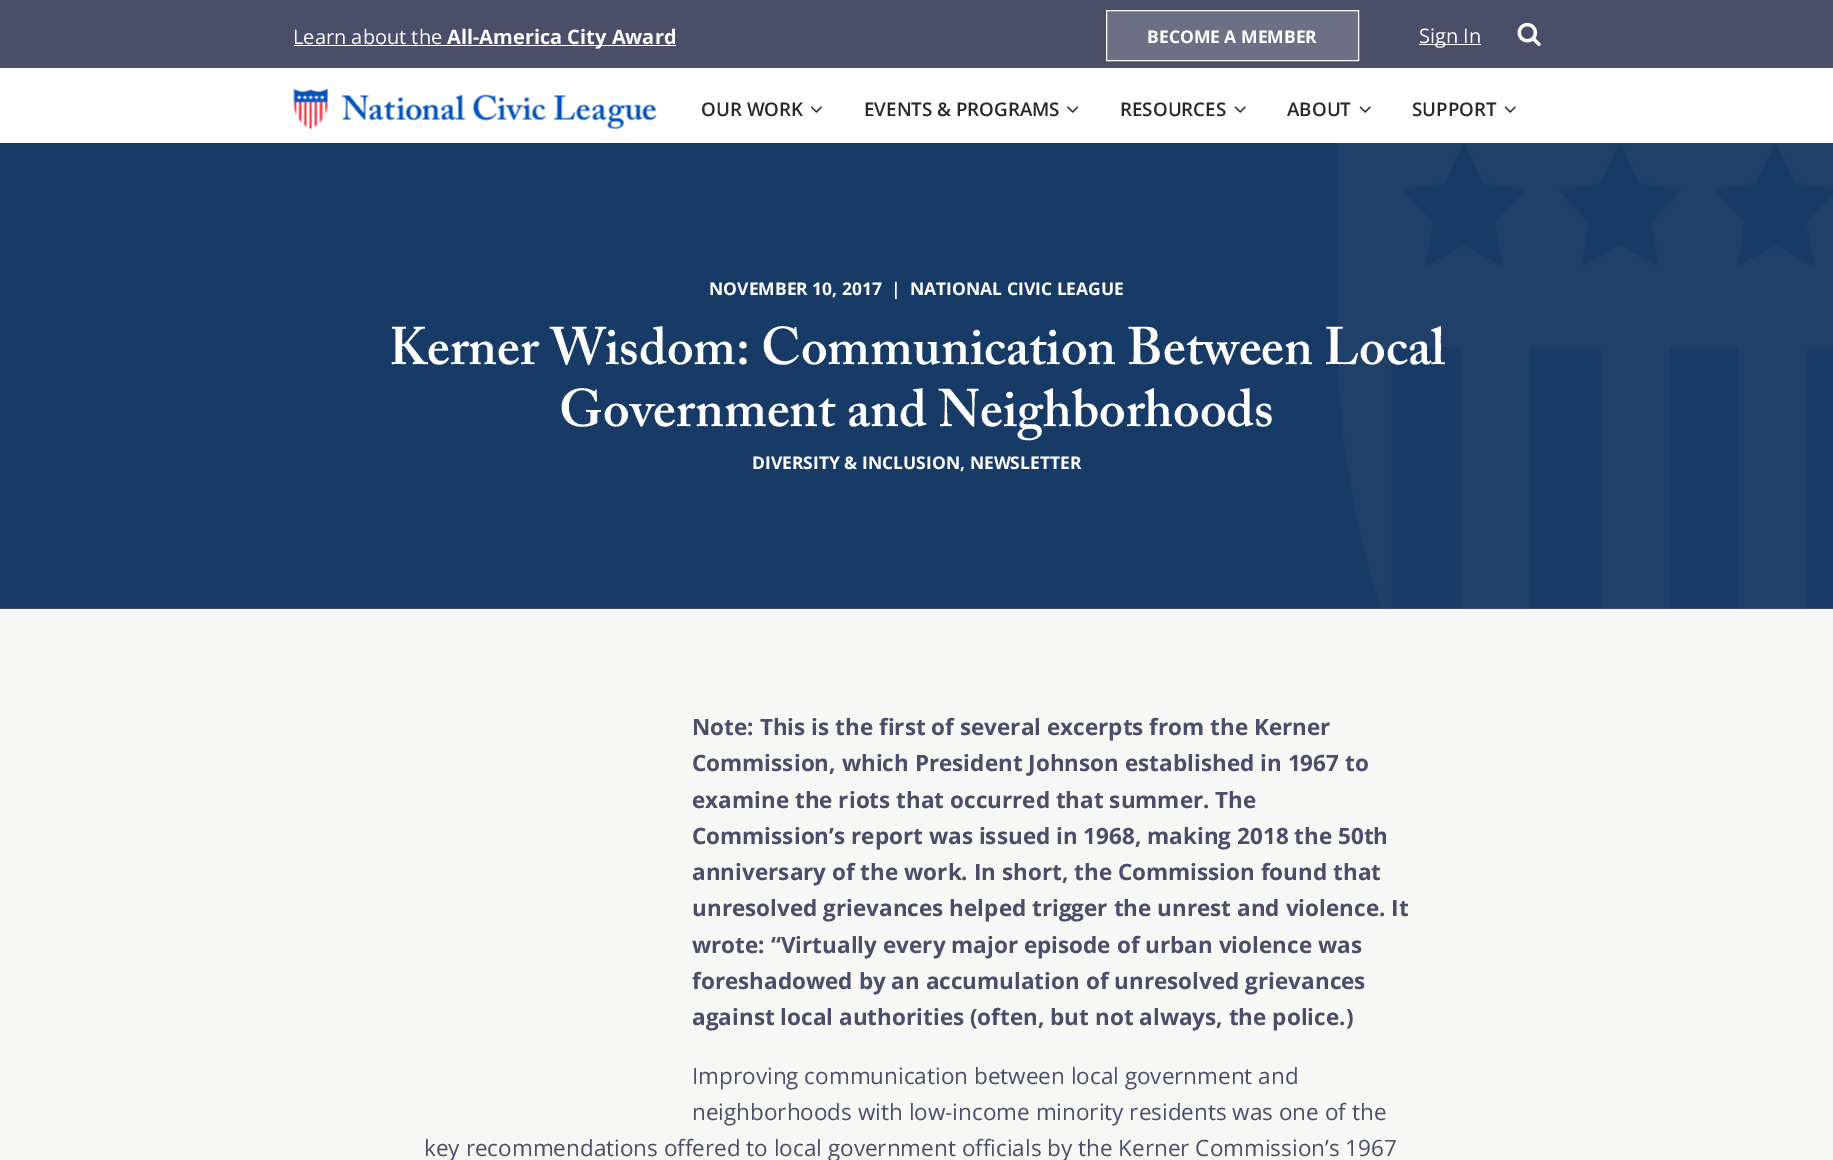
%!PS-Adobe-3.0
%%BoundingBox: 0 0 1833 1160
%%LanguageLevel: 3
%%Pages: 1
%%EndComments
%%BeginProlog
/drawimage { 5 dict begin { /h /w /y /x /name } { exch def } forall
  gsave x y translate w h scale
  w h 8 [w 0 0 h 0 0] name (r) file false 3 colorimage grestore end } def
%%EndProlog
%%BeginSetup
<< /PageSize [1833 1160] >> setpagedevice
%%EndSetup
%%Page: 1 1
0 1160 translate 1 -1 scale
4 setmiterlimit
0.969 0.969 0.961 setrgbcolor
0 0 1833 1160 rectfill
0.29 0.306 0.412 setrgbcolor
0 0 1833 68 rectfill
1 setgray
294 45 382 1 rectfill
0.427 0.435 0.522 setrgbcolor
newpath 1106.5 10.5 moveto 1358.5 10.5 lineto 1358.5 60.5 lineto 1106.5 60.5 lineto closepath gsave fill grestore
1 setgray
stroke
1419 44 62 1 rectfill
(images/1.raw) 1517 22 24 24 drawimage
0 68 1833 75 rectfill
(images/2.raw) 293 88 364 42 drawimage
(images/3.raw) 810 106 12 7 drawimage
(images/4.raw) 1067 106 12 7 drawimage
(images/5.raw) 1234 106 12 7 drawimage
(images/5.raw) 1359 106 12 7 drawimage
(images/5.raw) 1504 106 12 7 drawimage
(images/6.raw) 0 143 1833 466 drawimage
/OpenSans-Regular [20 0 0 -20 0 0] selectfont
293 44 moveto (Learn about the) show
/OpenSans-Bold [20 0 0 -20 0 0] selectfont
447 44 moveto (All-America City Award) show
/OpenSans-Bold [17.5 0 0 -17.5 0 0] selectfont
1147 43 moveto (BECOME A MEMBER) show
/OpenSans-Regular [20 0 0 -20 0 0] selectfont
1419 43 moveto (Sign In) show
/OpenSans-SemiBold [18.75 0 0 -18.75 0 0] selectfont
0.157 0.157 0.161 setrgbcolor
701 116 moveto (OUR WORK) show
864 116 moveto (EVENTS & PROGRAMS) show
1120 116 moveto (RESOURCES) show
1287 116 moveto (ABOUT) show
1412 116 moveto (SUPPORT) show
/OpenSans-Bold [17.5 0 0 -17.5 0 0] selectfont
1 setgray
709 295 moveto (NOVEMBER 10, 2017  |  NATIONAL CIVIC LEAGUE) show
/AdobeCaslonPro-SemiBold [52.5 0 0 -52.5 0 0] selectfont
389 364 moveto (Kerner Wisdom: Communication Between Local) show
559 426 moveto (Government and Neighborhoods) show
/OpenSans-Bold [17.5 0 0 -17.5 0 0] selectfont
752 469 moveto (DIVERSITY & INCLUSION, NEWSLETTER) show
/OpenSans-Bold [22.5 0 0 -22.5 0 0] selectfont
0.29 0.306 0.412 setrgbcolor
692 735 moveto (Note: This is the first of several excerpts from the Kerner) show
692 771 moveto (Commission, which President Johnson established in 1967 to) show
692 808 moveto (examine the riots that occurred that summer. The) show
692 844 moveto (Commission’s report was issued in 1968, making 2018 the 50th) show
692 880 moveto (anniversary of the work. In short, the Commission found that) show
692 916 moveto (unresolved grievances helped trigger the unrest and violence. It) show
692 953 moveto (wrote: “Virtually every major episode of urban violence was) show
692 989 moveto (foreshadowed by an accumulation of unresolved grievances) show
692 1025 moveto (against local authorities \(often, but not always, the police.\)) show
/OpenSans-Regular [22.5 0 0 -22.5 0 0] selectfont
692 1084 moveto (Improving communication between local government and) show
692 1120 moveto (neighborhoods with low-income minority residents was one of the) show
424 1156 moveto (key recommendations offered to local government officials by the Kerner Commission’s 1967) show
showpage
%%EOF
